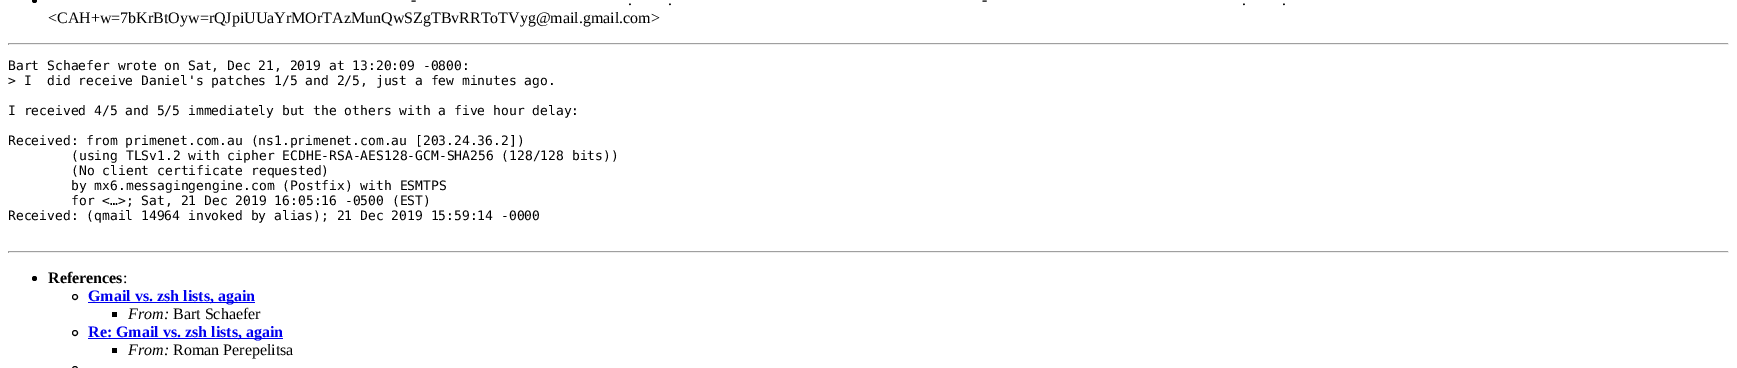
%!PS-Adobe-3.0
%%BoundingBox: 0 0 1737 368
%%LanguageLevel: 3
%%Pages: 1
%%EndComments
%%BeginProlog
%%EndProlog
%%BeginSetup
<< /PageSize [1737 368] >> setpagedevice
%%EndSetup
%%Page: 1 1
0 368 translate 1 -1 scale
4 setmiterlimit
1 setgray
0 0 1737 368 rectfill
0 setgray
newpath 34.5 0.5 2.5 0 360 arc closepath fill
0.624 setgray
8 43 1721 1 rectfill
0.933 setgray
1728 43 1 2 rectfill
8 44 1721 1 rectfill
0.624 setgray
8 43 1 2 rectfill
8 251 1721 1 rectfill
0.933 setgray
1728 251 1 2 rectfill
8 252 1721 1 rectfill
0.624 setgray
8 251 1 2 rectfill
0 setgray
newpath 34.5 278.5 2.5 0 360 arc closepath fill
newpath 75 297 2.5 0 360 arc closepath stroke
0 0 0.933 setrgbcolor
88 302 167 1 rectfill
0 setgray
112 312 5 5 rectfill
newpath 75 333 2.5 0 360 arc closepath stroke
0 0 0.933 setrgbcolor
88 338 195 1 rectfill
0 setgray
112 348 5 5 rectfill
newpath 75 369 2.5 0 360 arc closepath stroke
/LiberationSerif-Regular [16 0 0 -16 0 0] selectfont
411 5 moveto (-) show
982 5 moveto (-) show
628 5 moveto (.) show
668 5 moveto (.) show
1242 5 moveto (.) show
1282 5 moveto (.) show
48 23 moveto (<CAH+w=7bKrBtOyw=rQJpiUUaYrMOrTAzMunQwSZgTBvRRToTVyg@mail.gmail.com>) show
/DejaVuSansMono-Regular [13 0 0 -13 0 0] selectfont
8 70 moveto (Bart Schaefer wrote on Sat, Dec 21, 2019 at 13:20:09 -0800:) show
8 85 moveto (> I  did receive Daniel's patches 1/5 and 2/5, just a few minutes ago.) show
8 115 moveto (I received 4/5 and 5/5 immediately but the others with a five hour delay:) show
8 145 moveto (Received: from primenet.com.au \(ns1.primenet.com.au [203.24.36.2]\)) show
71 160 moveto (\(using TLSv1.2 with cipher ECDHE-RSA-AES128-GCM-SHA256 \(128/128 bits\)\)) show
71 175 moveto (\(No client certificate requested\)) show
71 190 moveto (by mx6.messagingengine.com \(Postfix\) with ESMTPS) show
71 205 moveto (for <…>; Sat, 21 Dec 2019 16:05:16 -0500 \(EST\)) show
8 220 moveto (Received: \(qmail 14964 invoked by alias\); 21 Dec 2019 15:59:14 -0000) show
/LiberationSerif-Bold [16 0 0 -16 0 0] selectfont
48 283 moveto (References) show
/LiberationSerif-Regular [16 0 0 -16 0 0] selectfont
123 283 moveto (:) show
/LiberationSerif-Bold [16 0 0 -16 0 0] selectfont
0 0 0.933 setrgbcolor
88 301 moveto (Gmail vs. zsh lists, again) show
/LiberationSerif-Italic [16 0 0 -16 0 0] selectfont
0 setgray
128 319 moveto (From:) show
/LiberationSerif-Regular [16 0 0 -16 0 0] selectfont
173 319 moveto (Bart Schaefer) show
/LiberationSerif-Bold [16 0 0 -16 0 0] selectfont
0 0 0.933 setrgbcolor
88 337 moveto (Re: Gmail vs. zsh lists, again) show
/LiberationSerif-Italic [16 0 0 -16 0 0] selectfont
0 setgray
128 355 moveto (From:) show
/LiberationSerif-Regular [16 0 0 -16 0 0] selectfont
173 355 moveto (Roman Perepelitsa) show
showpage
%%EOF
